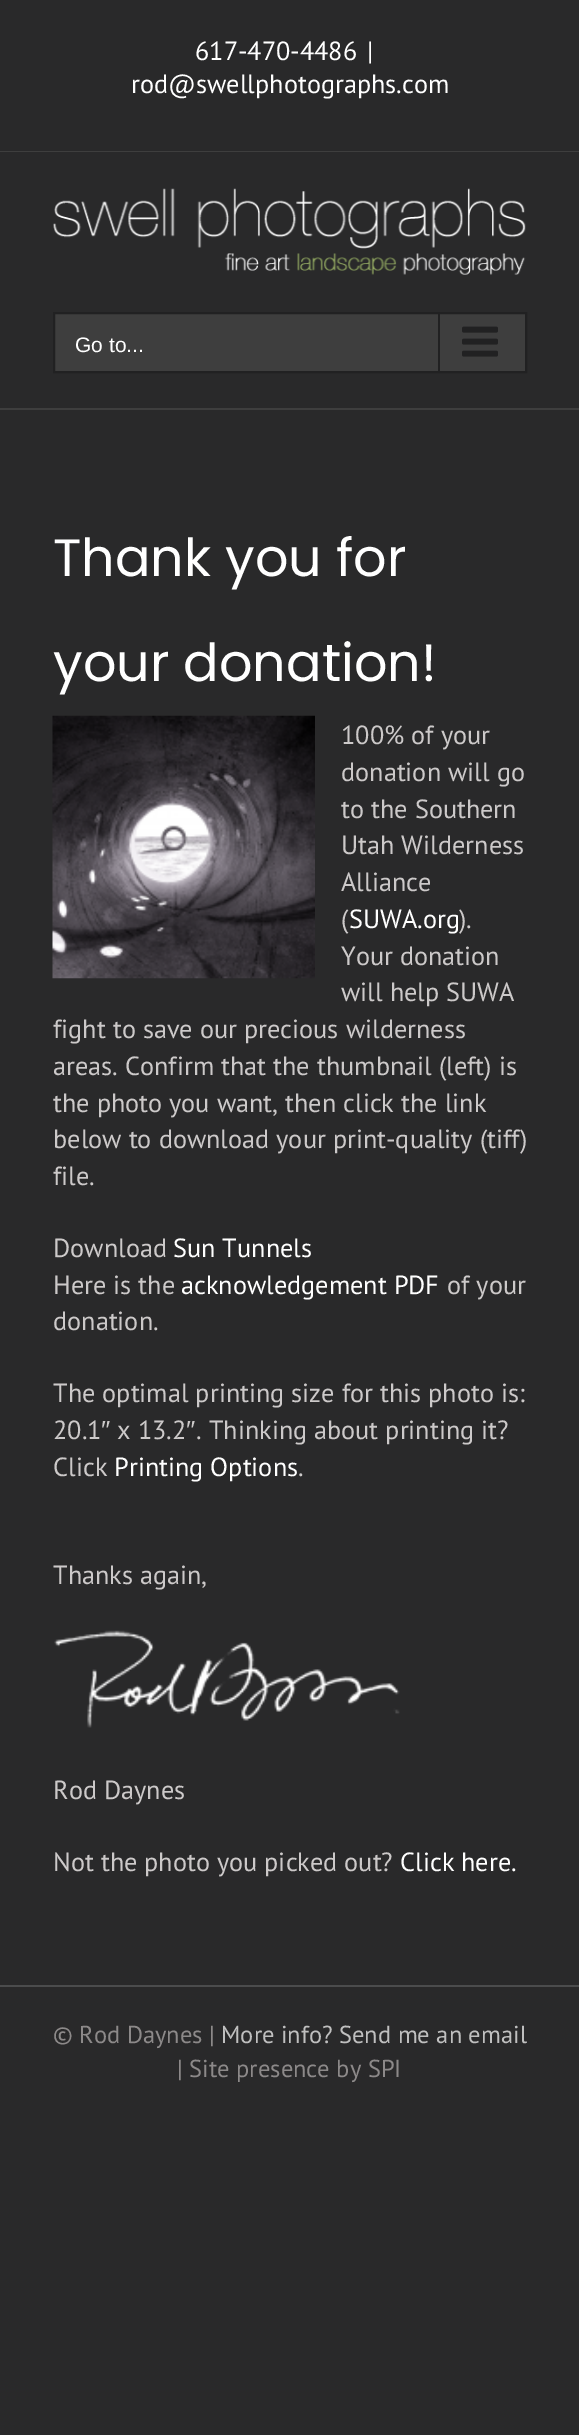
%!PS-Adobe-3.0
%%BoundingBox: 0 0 579 2435
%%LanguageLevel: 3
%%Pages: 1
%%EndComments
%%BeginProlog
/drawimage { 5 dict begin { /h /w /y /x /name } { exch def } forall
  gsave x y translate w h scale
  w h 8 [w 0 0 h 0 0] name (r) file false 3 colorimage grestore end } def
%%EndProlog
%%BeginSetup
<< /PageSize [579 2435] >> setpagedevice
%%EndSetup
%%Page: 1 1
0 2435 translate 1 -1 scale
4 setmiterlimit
0.161 0.161 0.165 setrgbcolor
0 0 579 2435 rectfill
0.243 setgray
0 151 579 1 rectfill
0 408 579 2 rectfill
(images/1.raw) 53 188 473 87 drawimage
newpath 54 313 moveto 526 313 lineto 526 372 lineto 54 372 lineto closepath gsave fill grestore
0.129 0.129 0.133 setrgbcolor
2 setlinewidth
stroke
438 313 2 58 rectfill
(images/2.raw) 462 326 36 31 drawimage
(images/3.raw) 52 715 263 264 drawimage
(images/4.raw) 54 1630 346 98 drawimage
0.294 0.298 0.302 setrgbcolor
0 1985 579 2 rectfill
/PTSans-Regular [26.25 0 0 -26.25 0 0] selectfont
1 setgray
195 60 moveto (617-470-4486) show
367 60 moveto (|) show
131 93 moveto (rod@swellphotographs.com) show
/LiberationSans-Regular [21 0 0 -21 0 0] selectfont
75 352 moveto (Go to...) show
/Poppins-Regular [52.5 0 0 -52.5 0 0] selectfont
53 576 moveto (Thank you for) show
53 681 moveto (your donation!) show
/PTSans-Regular [26.25 0 0 -26.25 0 0] selectfont
0.8 0.788 0.788 setrgbcolor
341 744 moveto (100% of your) show
341 781 moveto (donation will go) show
341 818 moveto (to the Southern) show
341 854 moveto (Utah Wilderness) show
341 891 moveto (Alliance) show
341 928 moveto (\() show
1 setgray
349 928 moveto (SUWA.org) show
0.8 0.788 0.788 setrgbcolor
459 928 moveto (\).) show
341 965 moveto (Your donation) show
341 1001 moveto (will help SUWA) show
53 1038 moveto (fight to save our precious wilderness) show
53 1075 moveto (areas. Confirm that the thumbnail \(left\) is) show
53 1112 moveto (the photo you want, then click the link) show
53 1148 moveto (below to download your print-quality \(tiff\)) show
53 1185 moveto (file.) show
53 1257 moveto (Download) show
1 setgray
173 1257 moveto (Sun Tunnels) show
0.8 0.788 0.788 setrgbcolor
53 1294 moveto (Here is the) show
1 setgray
181 1294 moveto (acknowledgement PDF) show
0.8 0.788 0.788 setrgbcolor
447 1294 moveto (of your) show
53 1330 moveto (donation.) show
53 1402 moveto (The optimal printing size for this photo is:) show
53 1439 moveto (20.1) show
/LiberationSans-Regular [26.25 0 0 -26.25 0 0] selectfont
101 1439 moveto (″) show
/PTSans-Regular [26.25 0 0 -26.25 0 0] selectfont
117 1439 moveto (x 13.2) show
/LiberationSans-Regular [26.25 0 0 -26.25 0 0] selectfont
186 1439 moveto (″) show
/PTSans-Regular [26.25 0 0 -26.25 0 0] selectfont
196 1439 moveto (. Thinking about printing it?) show
53 1476 moveto (Click) show
1 setgray
114 1476 moveto (Printing Options) show
0.8 0.788 0.788 setrgbcolor
298 1476 moveto (.) show
53 1584 moveto (Thanks again,) show
53 1799 moveto (Rod Daynes) show
53 1871 moveto (Not the photo you picked out?) show
1 setgray
400 1871 moveto (Click here.) show
/PTSans-Regular [24.5 0 0 -24.5 0 0] selectfont
0.549 0.537 0.537 setrgbcolor
53 2043 moveto (© Rod Daynes |) show
0.749 setgray
221 2043 moveto (More info? Send me an email) show
0.549 0.537 0.537 setrgbcolor
177 2077 moveto (| Site presence by SPI) show
showpage
%%EOF
